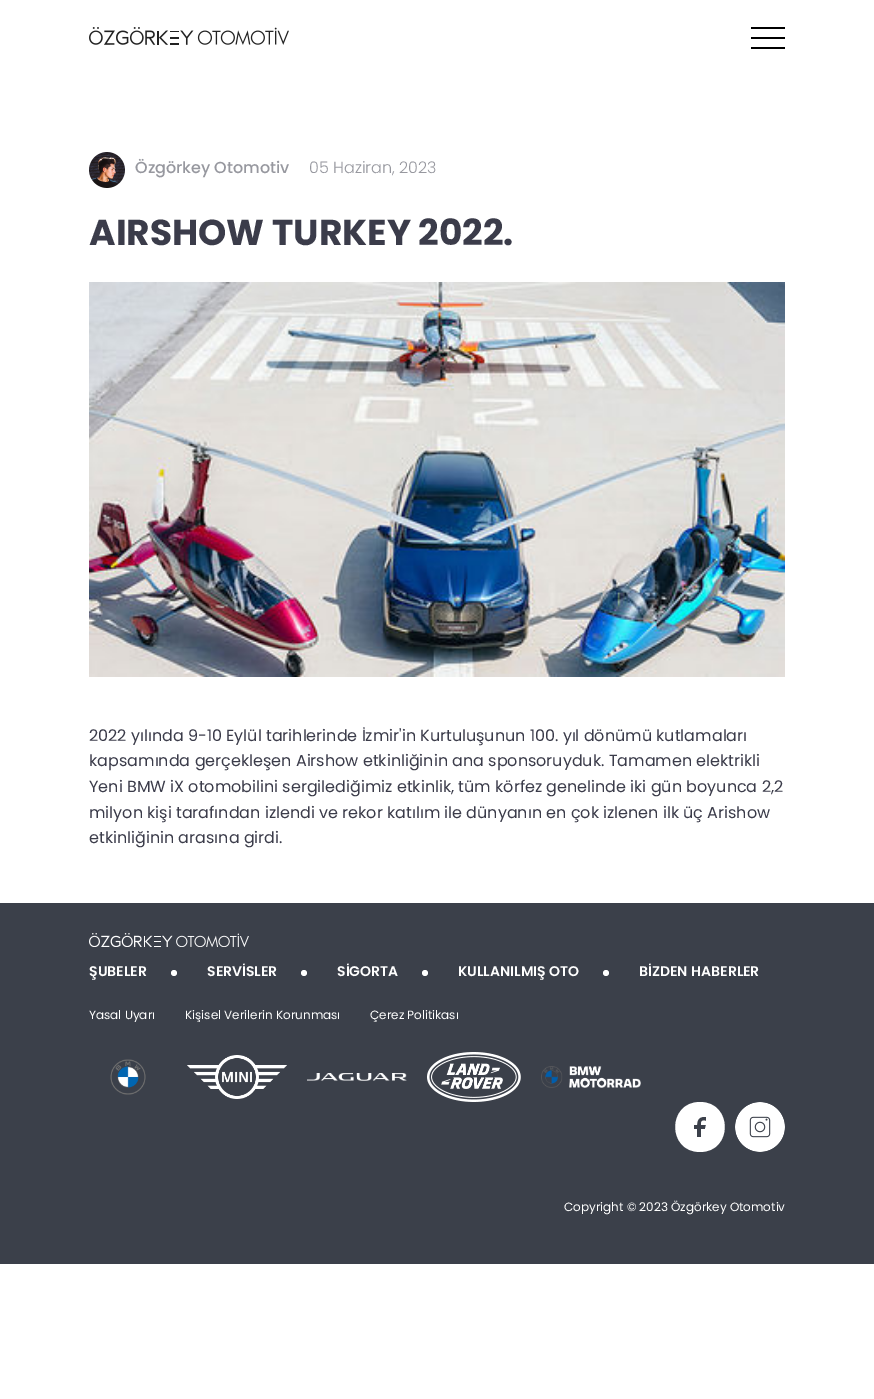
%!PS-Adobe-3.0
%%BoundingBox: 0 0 874 1399
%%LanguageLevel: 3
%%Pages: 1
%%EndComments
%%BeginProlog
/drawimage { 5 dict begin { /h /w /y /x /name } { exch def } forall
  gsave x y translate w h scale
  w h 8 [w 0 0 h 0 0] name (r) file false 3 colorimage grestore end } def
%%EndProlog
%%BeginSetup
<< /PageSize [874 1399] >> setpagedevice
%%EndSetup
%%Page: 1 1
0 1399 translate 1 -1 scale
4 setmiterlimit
1 setgray
0 0 874 1399 rectfill
(images/1.raw) 89 27 200 18 drawimage
0 setgray
751 27 34 2 rectfill
751 37 34 2 rectfill
751 47 34 2 rectfill
(images/2.raw) 89 152 36 36 drawimage
(images/3.raw) 89 282 696 395 drawimage
0.231 0.251 0.29 setrgbcolor
0 903 874 361 rectfill
(images/4.raw) 89 933 160 14 drawimage
1 setgray
newpath 174 973 3 0 360 arc closepath fill
newpath 304 973 3 0 360 arc closepath fill
newpath 425 973 3 0 360 arc closepath fill
newpath 606 973 3 0 360 arc closepath fill
(images/5.raw) 110 1059 36 36 drawimage
(images/6.raw) 187 1055 100 44 drawimage
(images/7.raw) 307 1073 100 8 drawimage
(images/8.raw) 427 1052 94 50 drawimage
(images/9.raw) 541 1066 100 22 drawimage
newpath 700 1102 moveto 667 1102 667 1152 700 1152 curveto 733 1152 733 1102 700 1102 curveto closepath 705 1129 moveto 706 1125 lineto 701 1125 lineto 701 1121 702 1120 706 1121 curveto 706 1117 lineto 700 1116 697 1119 697 1125 curveto 694 1125 lineto 694 1129 lineto 697 1129 lineto 697 1137 lineto 701 1137 lineto 701 1129 lineto closepath eofill
(images/10.raw) 735 1102 50 50 drawimage
/Poppins-Medium [16 0 0 -16 0 0] selectfont
0.592 0.596 0.624 setrgbcolor
135 173 moveto (Özgörkey Otomotiv) show
/Poppins-Light [16 0 0 -16 0 0] selectfont
309 173 moveto (05 Haziran, 2023) show
/Poppins-Bold [36 0 0 -36 0 0] selectfont
0.231 0.235 0.29 setrgbcolor
89 245 moveto (AIRSHOW TURKEY 2022.) show
/Poppins-Regular [16 0 0 -16 0 0] selectfont
89 741 moveto (2022 yılında 9-10 Eylül tarihlerinde İzmir'in Kurtuluşunun 100. yıl dönümü kutlamaları) show
89 766 moveto (kapsamında gerçekleşen Airshow etkinliğinin ana sponsoruyduk. Tamamen elektrikli) show
89 792 moveto (Yeni BMW iX otomobilini sergilediğimiz etkinlik, tüm körfez genelinde iki gün boyunca 2,2) show
89 818 moveto (milyon kişi tarafından izlendi ve rekor katılım ile dünyanın en çok izlenen ilk üç Arishow) show
89 843 moveto (etkinliğinin arasına girdi.) show
/Poppins-SemiBold [14 0 0 -14 0 0] selectfont
1 setgray
89 976 moveto (ŞUBELER) show
207 976 moveto (SERVİSLER) show
337 976 moveto (SİGORTA) show
458 976 moveto (KULLANILMIŞ OTO) show
639 976 moveto (BİZDEN HABERLER) show
/Poppins-Regular [12 0 0 -12 0 0] selectfont
89 1019 moveto (Yasal Uyarı) show
185 1019 moveto (Kişisel Verilerin Korunması) show
370 1019 moveto (Çerez Politikası) show
564 1211 moveto (Copyright © 2023 Özgörkey Otomotiv) show
showpage
%%EOF
